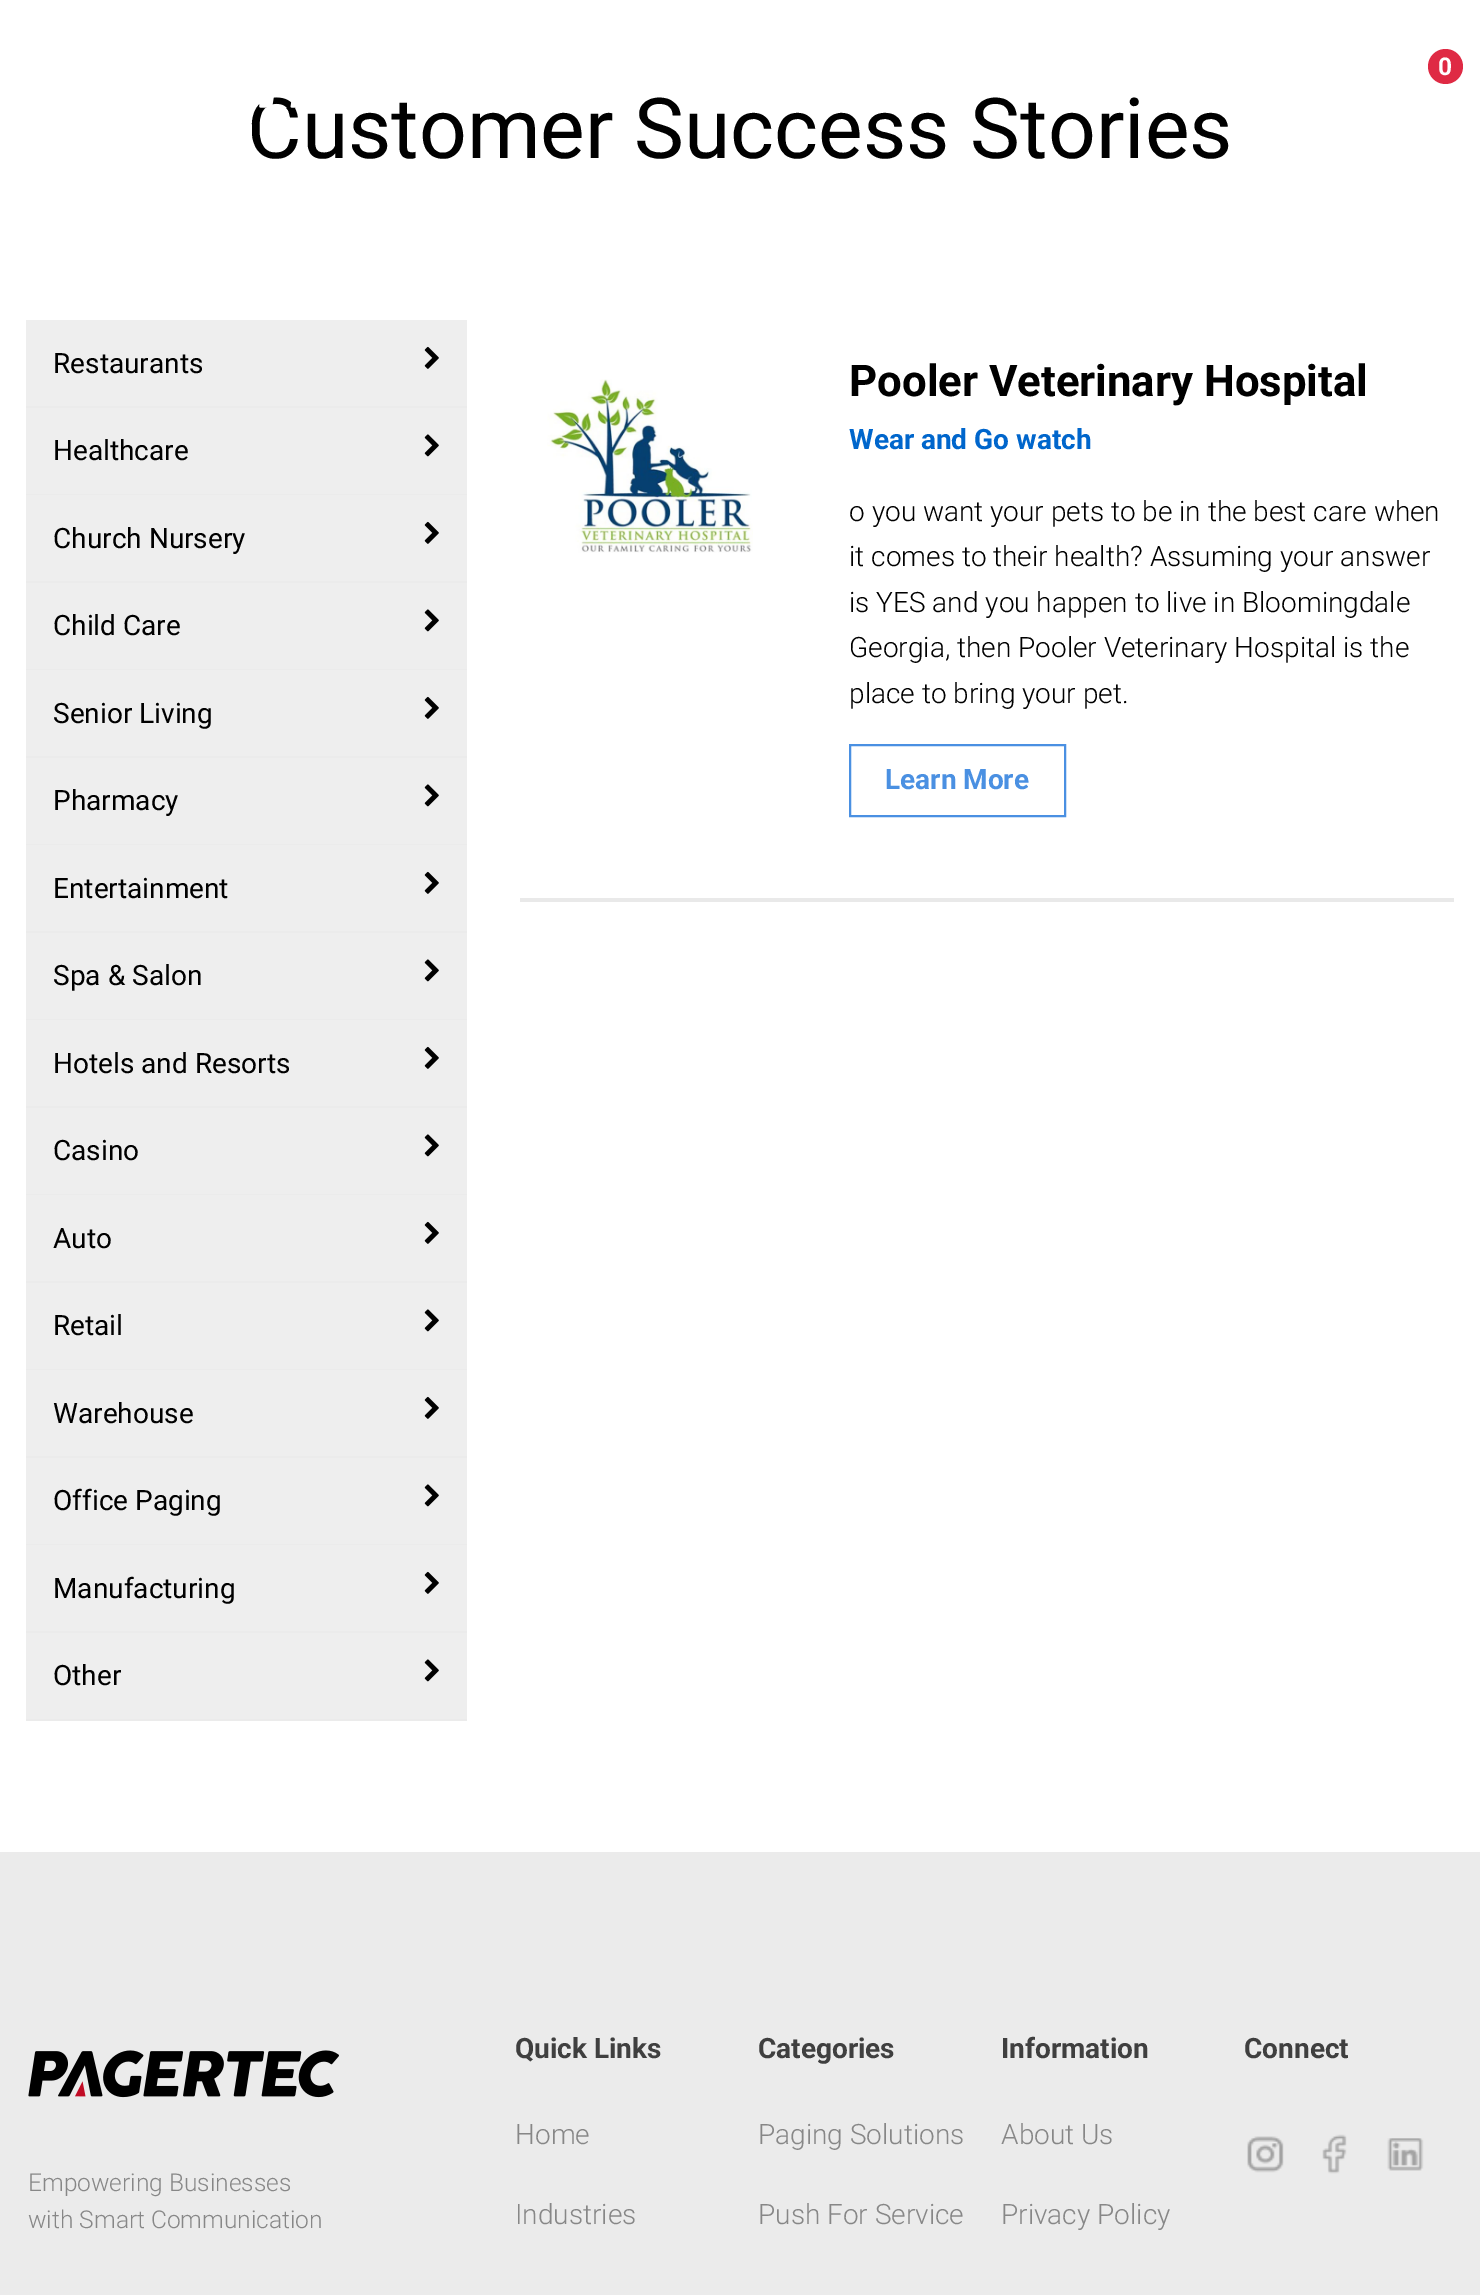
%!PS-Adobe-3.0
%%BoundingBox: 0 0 1480 2295
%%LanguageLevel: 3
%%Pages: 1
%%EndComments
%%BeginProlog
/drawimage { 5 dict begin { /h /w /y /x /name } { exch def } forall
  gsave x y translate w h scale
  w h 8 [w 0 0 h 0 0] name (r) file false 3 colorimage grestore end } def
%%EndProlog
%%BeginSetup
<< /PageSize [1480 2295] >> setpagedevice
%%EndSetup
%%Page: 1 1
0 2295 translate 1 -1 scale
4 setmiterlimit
1 setgray
0 0 1480 2295 rectfill
0.875 0.165 0.267 setrgbcolor
newpath 1445.5 66.5 17.5 0 360 arc closepath fill
0.933 setgray
26 320 441 86 rectfill
0.922 setgray
26 406 441 2 rectfill
(images/2.raw) 424 346 15 23 drawimage
0.933 setgray
26 408 441 86 rectfill
0.922 setgray
26 494 441 1 rectfill
(images/3.raw) 424 434 15 23 drawimage
0.933 setgray
26 495 441 86 rectfill
0.922 setgray
26 581 441 2 rectfill
(images/2.raw) 424 521 15 23 drawimage
0.933 setgray
26 583 441 86 rectfill
0.922 setgray
26 669 441 1 rectfill
(images/3.raw) 424 609 15 23 drawimage
0.933 setgray
26 670 441 86 rectfill
0.922 setgray
26 756 441 2 rectfill
(images/2.raw) 424 696 15 23 drawimage
0.933 setgray
26 758 441 86 rectfill
0.922 setgray
26 844 441 1 rectfill
(images/3.raw) 424 784 15 23 drawimage
0.933 setgray
26 845 441 86 rectfill
0.922 setgray
26 931 441 2 rectfill
(images/2.raw) 424 871 15 23 drawimage
0.933 setgray
26 933 441 86 rectfill
0.922 setgray
26 1019 441 1 rectfill
(images/3.raw) 424 959 15 23 drawimage
0.933 setgray
26 1020 441 86 rectfill
0.922 setgray
26 1106 441 2 rectfill
(images/2.raw) 424 1046 15 23 drawimage
0.933 setgray
26 1108 441 86 rectfill
0.922 setgray
26 1194 441 1 rectfill
(images/3.raw) 424 1134 15 23 drawimage
0.933 setgray
26 1195 441 86 rectfill
0.922 setgray
26 1281 441 2 rectfill
(images/2.raw) 424 1221 15 23 drawimage
0.933 setgray
26 1283 441 86 rectfill
0.922 setgray
26 1369 441 1 rectfill
(images/3.raw) 424 1309 15 23 drawimage
0.933 setgray
26 1370 441 86 rectfill
0.922 setgray
26 1456 441 2 rectfill
(images/2.raw) 424 1396 15 23 drawimage
0.933 setgray
26 1458 441 86 rectfill
0.922 setgray
26 1544 441 1 rectfill
(images/3.raw) 424 1484 15 23 drawimage
0.933 setgray
26 1545 441 86 rectfill
0.922 setgray
26 1631 441 2 rectfill
(images/2.raw) 424 1571 15 23 drawimage
0.933 setgray
26 1633 441 86 rectfill
0.922 setgray
26 1719 441 2 rectfill
(images/3.raw) 424 1659 15 23 drawimage
(images/4.raw) 547 379 206 174 drawimage
0.29 0.565 0.886 setrgbcolor
2 setlinewidth
850 745 215 71 rectstroke
0.914 setgray
520 898 934 4 rectfill
0.922 setgray
0 1852 1480 443 rectfill
(images/5.raw) 1247 2136 37 37 drawimage
(images/6.raw) 1322 2134 25 40 drawimage
(images/7.raw) 1387 2138 37 33 drawimage
(images/8.raw) 28 2050 311 48 drawimage
/Roboto-Bold [24.5 0 0 -24.5 0 0] selectfont
1 setgray
1438 75 moveto (0) show
/Roboto-Regular [84 0 0 -84 0 0] selectfont
0 setgray
247 158 moveto (Customer Success Stories) show
(images/1.raw) 259 97 37 11 drawimage
/Roboto-Regular [28 0 0 -28 0 0] selectfont
53 373 moveto (Restaurants) show
53 460 moveto (Healthcare) show
53 548 moveto (Church Nursery) show
53 635 moveto (Child Care) show
53 723 moveto (Senior Living) show
53 810 moveto (Pharmacy) show
53 898 moveto (Entertainment) show
53 985 moveto (Spa & Salon) show
53 1073 moveto (Hotels and Resorts) show
53 1160 moveto (Casino) show
53 1248 moveto (Auto) show
53 1335 moveto (Retail) show
53 1423 moveto (Warehouse) show
53 1510 moveto (Office Paging) show
53 1598 moveto (Manufacturing) show
53 1685 moveto (Other) show
/Roboto-Bold [43.75 0 0 -43.75 0 0] selectfont
849 396 moveto (Pooler Veterinary Hospital) show
/Roboto-Bold [28 0 0 -28 0 0] selectfont
0 0.4 0.8 setrgbcolor
849 449 moveto (Wear and Go watch) show
/Roboto-Light [28 0 0 -28 0 0] selectfont
0 setgray
849 521 moveto (o you want your pets to be in the best care when) show
849 566 moveto (it comes to their health? Assuming your answer) show
849 612 moveto (is YES and you happen to live in Bloomingdale) show
849 657 moveto (Georgia, then Pooler Veterinary Hospital is the) show
849 703 moveto (place to bring your pet.) show
/Roboto-Bold [28 0 0 -28 0 0] selectfont
0.29 0.565 0.886 setrgbcolor
885 789 moveto (Learn More) show
0.247 setgray
515 2058 moveto (Quick Links) show
/Roboto-Light [28 0 0 -28 0 0] selectfont
0.529 setgray
515 2144 moveto (Home) show
515 2224 moveto (Industries) show
/Roboto-Bold [28 0 0 -28 0 0] selectfont
0.247 setgray
758 2058 moveto (Categories) show
/Roboto-Light [28 0 0 -28 0 0] selectfont
0.529 setgray
758 2144 moveto (Paging Solutions) show
758 2224 moveto (Push For Service) show
/Roboto-Bold [28 0 0 -28 0 0] selectfont
0.247 setgray
1001 2058 moveto (Information) show
/Roboto-Light [28 0 0 -28 0 0] selectfont
0.529 setgray
1001 2144 moveto (About Us) show
1001 2224 moveto (Privacy Policy) show
/Roboto-Bold [28 0 0 -28 0 0] selectfont
0.247 setgray
1244 2058 moveto (Connect) show
/Roboto-Light [24.5 0 0 -24.5 0 0] selectfont
0.529 setgray
28 2191 moveto (Empowering Businesses) show
28 2228 moveto (with Smart Communication) show
showpage
%%EOF
